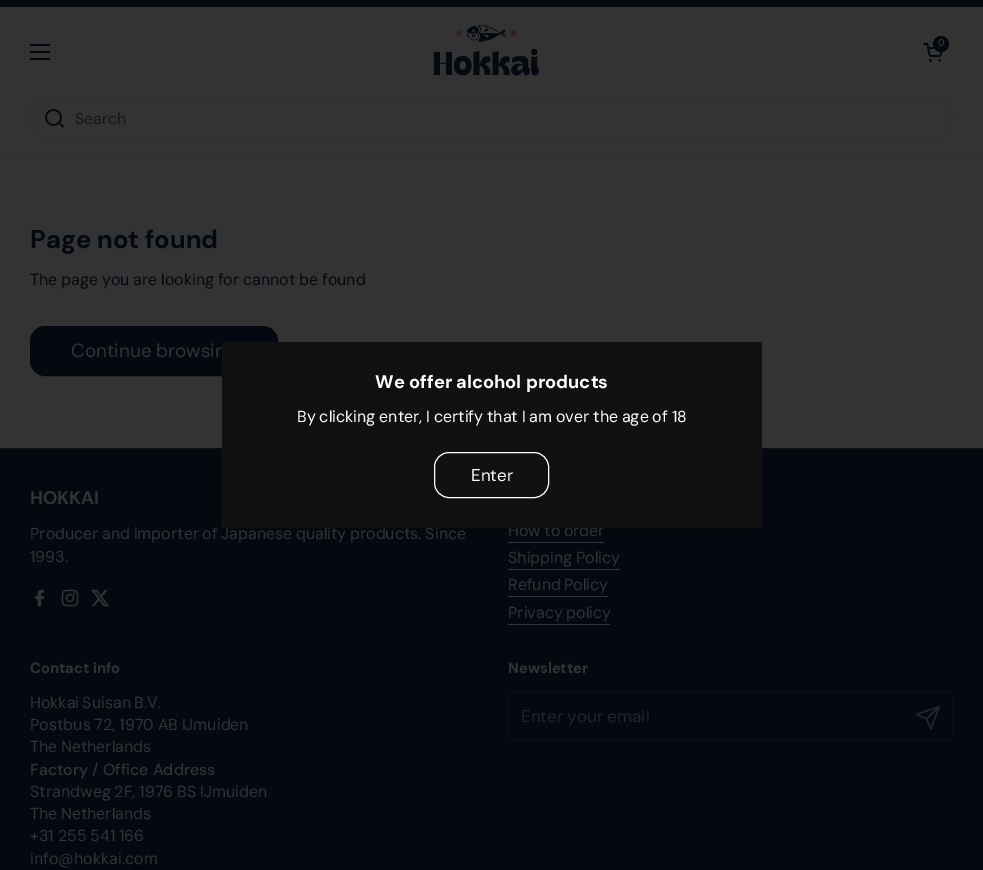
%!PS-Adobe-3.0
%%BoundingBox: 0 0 983 870
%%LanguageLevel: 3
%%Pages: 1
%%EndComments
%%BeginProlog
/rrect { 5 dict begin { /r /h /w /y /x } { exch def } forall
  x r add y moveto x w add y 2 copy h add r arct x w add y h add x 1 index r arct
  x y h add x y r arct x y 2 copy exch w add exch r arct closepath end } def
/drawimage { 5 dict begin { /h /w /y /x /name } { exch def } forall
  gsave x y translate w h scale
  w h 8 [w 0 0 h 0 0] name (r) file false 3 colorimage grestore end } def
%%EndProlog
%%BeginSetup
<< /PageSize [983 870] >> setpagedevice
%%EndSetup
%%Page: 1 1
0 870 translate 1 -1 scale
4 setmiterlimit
0.2 setgray
0 0 983 870 rectfill
0.016 0.035 0.063 setrgbcolor
0 0 983 7 rectfill
(images/1.raw) 433 25 106 51 drawimage
(images/2.raw) 923 43 20 19 drawimage
newpath 941 44 8 0 360 arc closepath fill
30 44 20 2 rectfill
30 51 20 2 rectfill
30 58 20 2 rectfill
0.18 0.184 0.188 setrgbcolor
0 154 983 1 rectfill
31.5 98.5 920 39 14.5 rrect stroke
(images/3.raw) 45 109 19 19 drawimage
0.016 0.035 0.063 setrgbcolor
30.5 326.5 247 49 14.5 rrect gsave fill grestore
stroke
0 449 983 421 rectfill
0.043 0.059 0.086 setrgbcolor
0 448 983 1 rectfill
(images/4.raw) 35 589 10 18 drawimage
(images/5.raw) 61 589 18 18 drawimage
(images/6.raw) 91 589 18 18 drawimage
0.2 setgray
508 542 96 1 rectfill
508 569 112 1 rectfill
508 596 100 1 rectfill
508 624 102 1 rectfill
0.043 0.059 0.086 setrgbcolor
508.5 692.5 444 48 2.5 rrect stroke
0.137 0.145 0.153 setrgbcolor
1.5 setlinewidth
1 setlinecap
1 setlinejoin
newpath 939 706.5 moveto 926.5 719 lineto 939 706.5 moveto 931 729 lineto 926.5 719 lineto 916.5 714.5 lineto closepath stroke
/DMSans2-Medium [10 0 0 -10 0 0] selectfont
0.2 setgray
938 46 moveto (0) show
/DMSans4-Regular [16 0 0 -16 0 0] selectfont
0.078 0.09 0.11 setrgbcolor
75 124 moveto (Search) show
/DMSans-Bold [25.75 0 0 -25.75 0 0] selectfont
0.016 0.035 0.063 setrgbcolor
30 248 moveto (Page not found) show
/DMSans-Regular [15.95 0 0 -15.95 0 0] selectfont
30 285 moveto -0.5 0 32 (The page you are looking for cannot be found) widthshow
/DMSans2-Regular [19 0 0 -19 0 0] selectfont
0.2 setgray
71 357 moveto (Continue browsin) show
/DMSans2-Bold [18.3 0 0 -18.3 0 0] selectfont
30 504 moveto (HOKKAI) show
/DMSans-Regular [15.95 0 0 -15.95 0 0] selectfont
30 539 moveto -0.75 0 32 (Producer and importer of Japanese quality products. Since) widthshow
30 562 moveto (1993.) show
508 536 moveto -1 0 32 (How to order) widthshow
0.067 setgray
222 342 540 186 rectfill
1 setgray
1 setlinewidth
0 setlinecap
0 setlinejoin
434.5 452.5 114 45 14.5 rrect stroke
/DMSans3-Regular [17 0 0 -17 0 0] selectfont
471 481 moveto (Enter) show
/DMSans-Regular [15.95 0 0 -15.95 0 0] selectfont
297 422 moveto -0.5 0 32 (By clicking enter, I certify that I am over the age of 18) widthshow
/DMSans2-Bold [18.3 0 0 -18.3 0 0] selectfont
375 388 moveto (We offer alcohol products) show
/DMSans-Regular [15.95 0 0 -15.95 0 0] selectfont
0.2 setgray
508 563 moveto -1 0 32 (Shipping Policy) widthshow
508 590 moveto -1 0 32 (Refund Policy) widthshow
508 618 moveto -1 0 32 (Privacy policy) widthshow
/DMSans3-Bold [14.75 0 0 -14.75 0 0] selectfont
30 673 moveto (Contact info) show
/DMSans-Regular [15.95 0 0 -15.95 0 0] selectfont
30 708 moveto -1 0 32 (Hokkai Suisan B.V.) widthshow
30 730 moveto -0.5 0 32 (Postbus 72, 1970 AB IJmuiden) widthshow
30 752 moveto -1 0 32 (The Netherlands) widthshow
/DMSans-Medium [15.95 0 0 -15.95 0 0] selectfont
30 775 moveto (Factory / Office Address) show
/DMSans-Regular [15.95 0 0 -15.95 0 0] selectfont
30 797 moveto -0.5 0 32 (Strandweg 2F, 1976 BS IJmuiden) widthshow
30 819 moveto -1 0 32 (The Netherlands) widthshow
30 841 moveto -0.5 0 32 (+31 255 541 166) widthshow
30 864 moveto (info@hokkai.com) show
/DMSans3-Bold [14.75 0 0 -14.75 0 0] selectfont
508 673 moveto (Newsletter) show
/DMSans3-Regular [17 0 0 -17 0 0] selectfont
0.137 0.145 0.153 setrgbcolor
521 722 moveto (Enter your email) show
showpage
%%EOF
